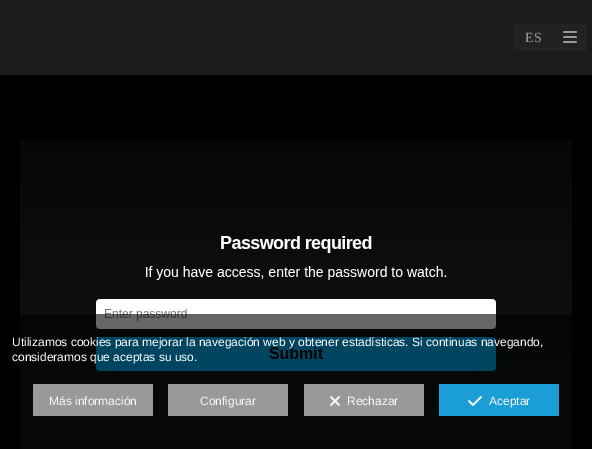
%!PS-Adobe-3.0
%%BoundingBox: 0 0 592 449
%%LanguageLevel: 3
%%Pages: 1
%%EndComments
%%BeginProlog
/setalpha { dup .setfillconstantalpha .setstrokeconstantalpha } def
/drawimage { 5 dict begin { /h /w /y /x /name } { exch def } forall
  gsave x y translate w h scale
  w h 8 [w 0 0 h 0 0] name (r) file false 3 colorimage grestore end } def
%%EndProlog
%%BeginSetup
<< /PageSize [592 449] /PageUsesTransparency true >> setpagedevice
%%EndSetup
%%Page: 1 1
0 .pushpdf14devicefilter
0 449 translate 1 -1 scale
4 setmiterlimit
0 setgray
0 0 592 449 rectfill
0.106 setgray
0 0 592 75 rectfill
0.133 setgray
514 24 73 27 rectfill
(images/1.raw) 563 31 14 12 drawimage
(images/2.raw) 20 140 552 309 drawimage
0.6 setalpha
0 setgray
20 314 552 135 rectfill
1 setalpha
0.6 setgray
33 384 120 32 rectfill
168 384 120 32 rectfill
304 384 120 32 rectfill
(images/3.raw) 330 396 10 10 drawimage
0.102 0.62 0.835 setrgbcolor
439 384 120 32 rectfill
(images/4.raw) 468 396 14 10 drawimage
/LiberationSerif-Regular [14 0 0 -14 0 0] selectfont
0.6 setgray
525 42 moveto (ES) show
/LiberationSans-Regular [12 0 0 -12 0 0] selectfont
1 setgray
12 346 moveto (Utilizamos cookies para mejorar la navegación web y obtener estadísticas. Si continuas navegando,) show
12 361 moveto (consideramos que aceptas su uso.) show
0.976 setgray
49 405 moveto (Más información) show
200 405 moveto (Configurar) show
347 405 moveto (Rechazar) show
489 405 moveto (Aceptar) show
.poppdf14devicefilter showpage
%%EOF
